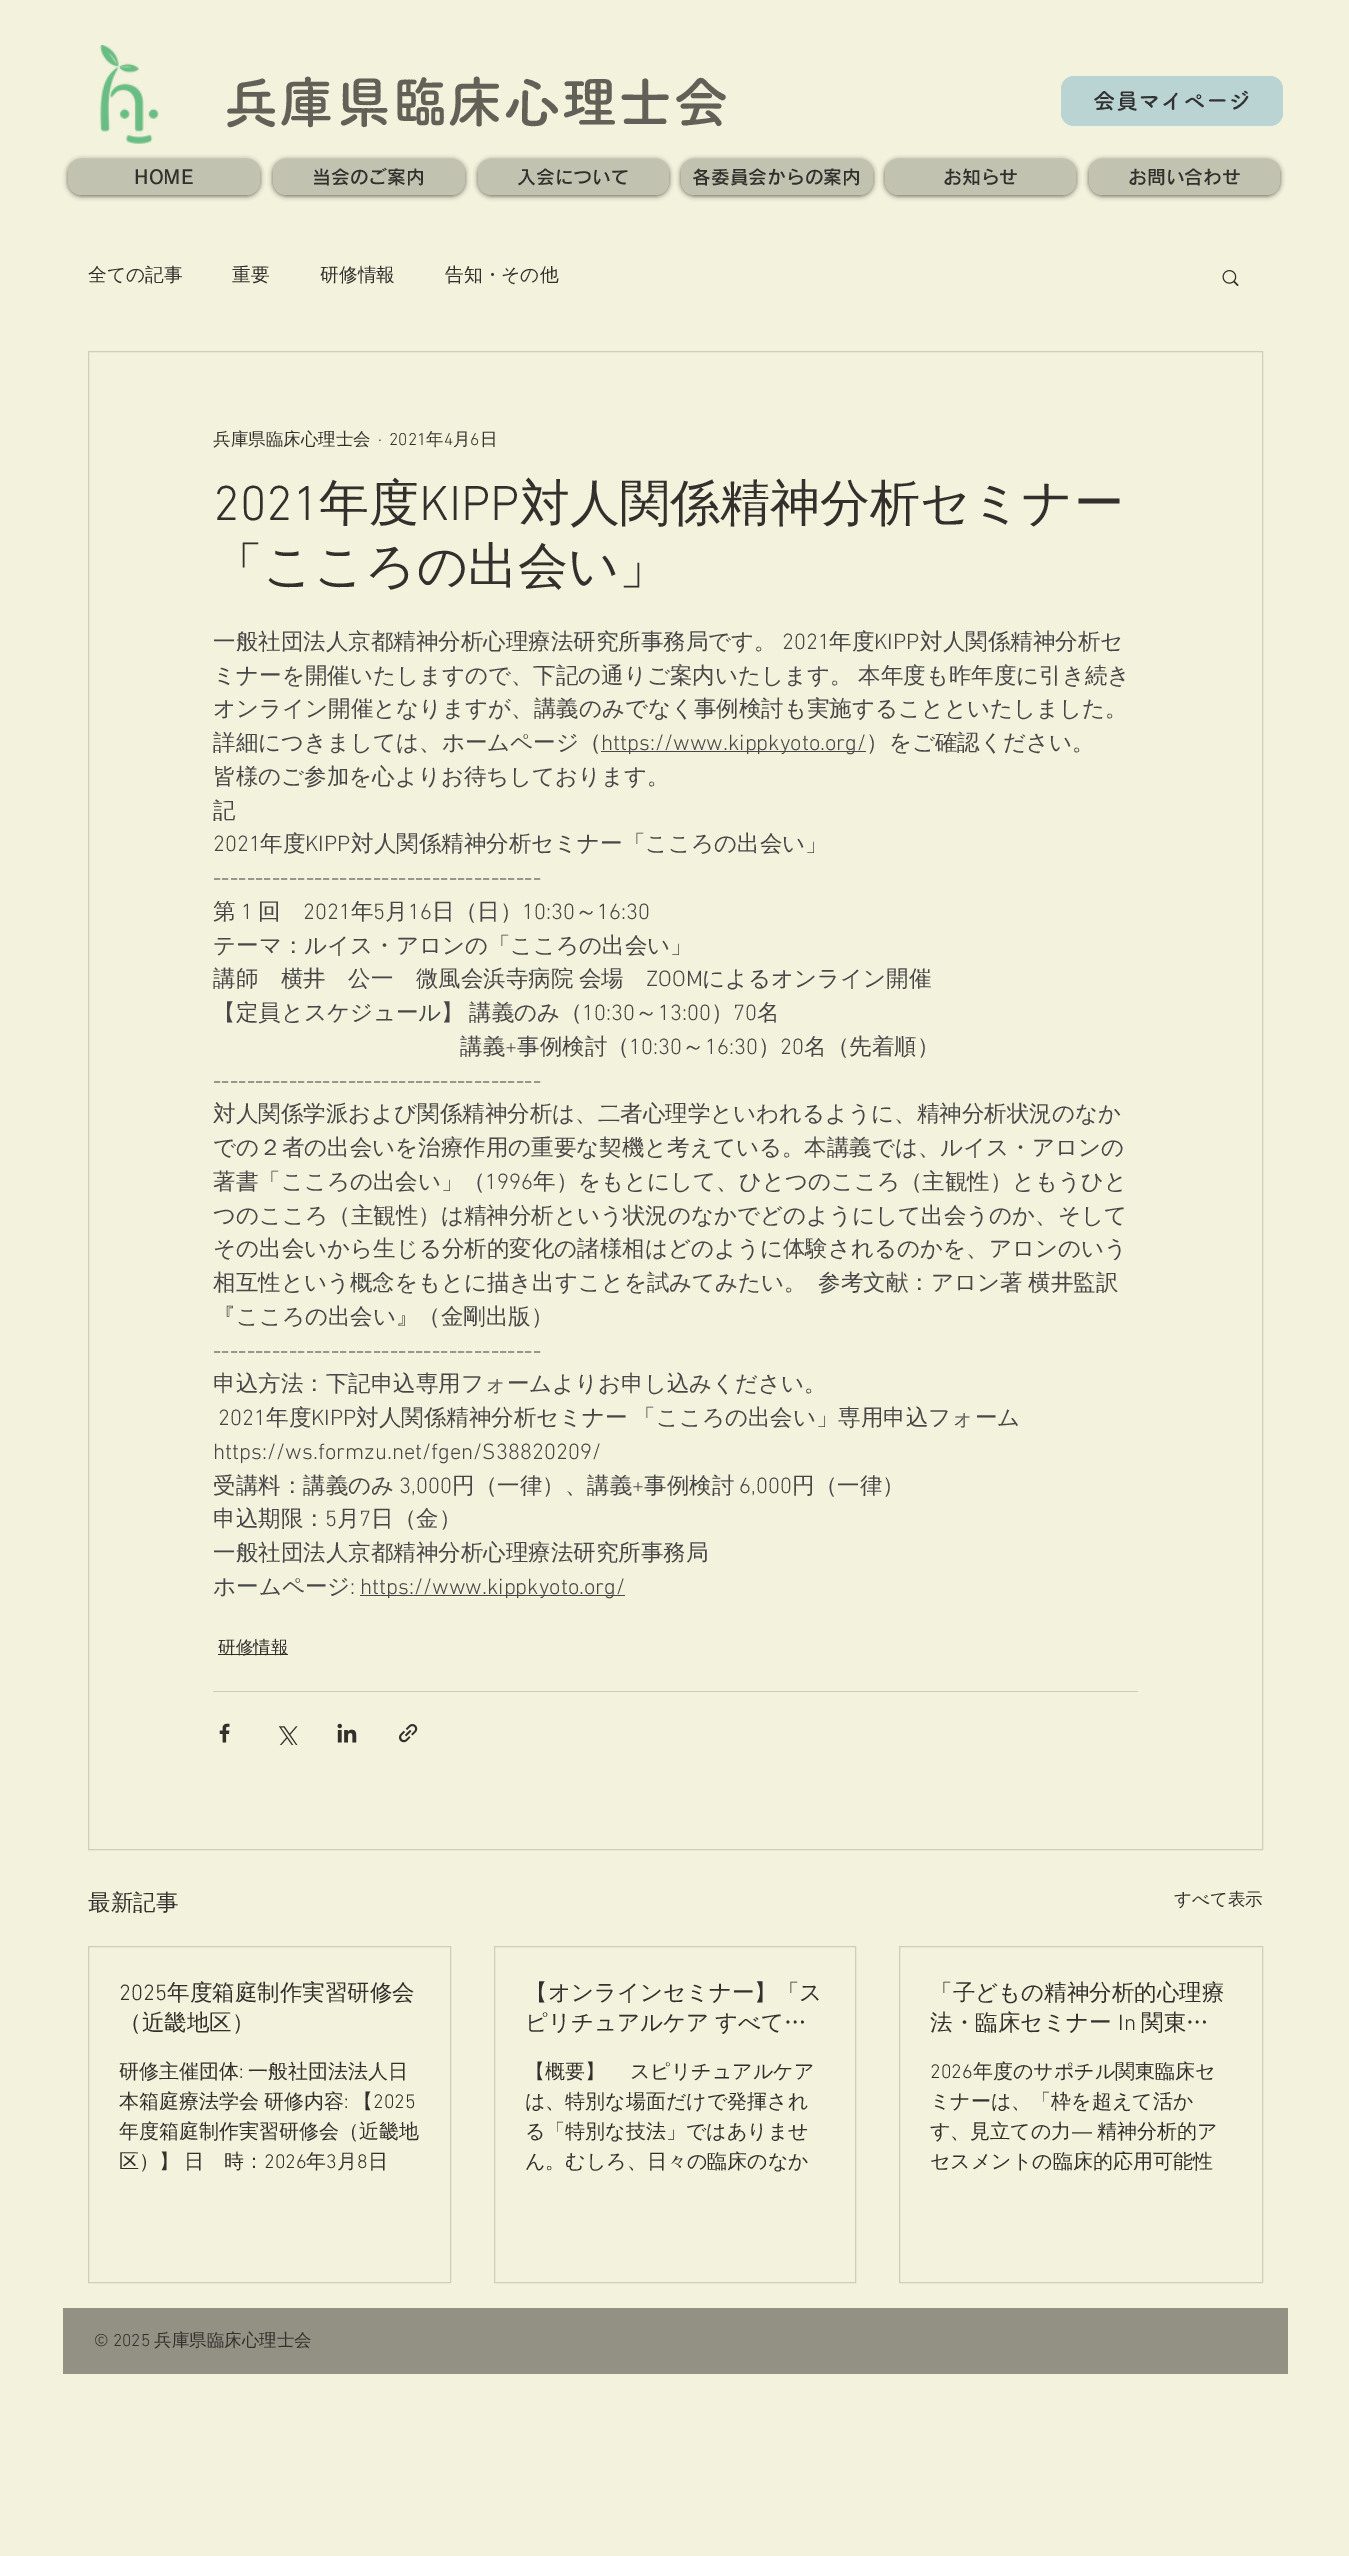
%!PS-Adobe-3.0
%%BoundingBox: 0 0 1349 2556
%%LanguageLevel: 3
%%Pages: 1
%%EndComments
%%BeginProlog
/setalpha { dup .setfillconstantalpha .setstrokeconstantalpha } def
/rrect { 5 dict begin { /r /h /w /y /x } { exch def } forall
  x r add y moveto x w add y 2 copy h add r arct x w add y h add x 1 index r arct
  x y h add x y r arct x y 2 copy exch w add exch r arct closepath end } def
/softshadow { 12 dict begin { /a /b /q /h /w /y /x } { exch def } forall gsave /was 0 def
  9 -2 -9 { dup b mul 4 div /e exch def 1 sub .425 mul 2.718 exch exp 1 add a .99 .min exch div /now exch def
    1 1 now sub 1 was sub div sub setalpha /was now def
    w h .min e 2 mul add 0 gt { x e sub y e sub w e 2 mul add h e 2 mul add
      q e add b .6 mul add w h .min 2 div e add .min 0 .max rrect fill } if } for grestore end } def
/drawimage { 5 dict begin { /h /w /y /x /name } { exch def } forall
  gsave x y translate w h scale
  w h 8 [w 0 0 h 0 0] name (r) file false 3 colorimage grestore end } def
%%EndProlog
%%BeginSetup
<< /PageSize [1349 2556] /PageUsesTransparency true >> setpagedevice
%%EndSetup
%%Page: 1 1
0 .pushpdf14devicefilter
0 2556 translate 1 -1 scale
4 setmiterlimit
0.953 0.949 0.863 setrgbcolor
0 0 1349 2556 rectfill
(images/1.raw) 99 45 60 99 drawimage
0.729 0.831 0.831 setrgbcolor
1061 76 222 50 13 rrect fill
0 setgray
68 160 192 36 13 2.5 0.6 softshadow
0.761 0.761 0.69 setrgbcolor
68 159 192 36 13 rrect fill
0 setgray
273 160 192 36 13 2.5 0.6 softshadow
0.761 0.761 0.69 setrgbcolor
273 159 192 36 13 rrect fill
0 setgray
478 160 191 36 13 2.5 0.6 softshadow
0.761 0.761 0.69 setrgbcolor
478 159 191 36 13 rrect fill
0 setgray
681 160 192 36 13 2.5 0.6 softshadow
0.761 0.761 0.69 setrgbcolor
681 159 192 36 13 rrect fill
0 setgray
885 160 191 36 13 2.5 0.6 softshadow
0.761 0.761 0.69 setrgbcolor
885 159 191 36 13 rrect fill
0 setgray
1089 160 191 36 13 2.5 0.6 softshadow
0.761 0.761 0.69 setrgbcolor
1089 159 191 36 13 rrect fill
(images/2.raw) 1222 270 17 17 drawimage
0.808 0.808 0.733 setrgbcolor
88.5 351.5 1174 1498 rectstroke
0.278 setgray
601 751 265 1 rectfill
360 1595 265 1 rectfill
0.192 0.188 0.173 setrgbcolor
218 1654 70 1 rectfill
0.8 0.796 0.725 setrgbcolor
213 1691 925 1 rectfill
(images/3.raw) 219 1723 11 20 drawimage
(images/4.raw) 278 1726 20 19 drawimage
(images/5.raw) 337 1723 20 20 drawimage
(images/6.raw) 399 1724 19 19 drawimage
0.808 0.808 0.733 setrgbcolor
88.5 1946.5 362 336 rectstroke
494.5 1946.5 361 336 rectstroke
899.5 1946.5 363 336 rectstroke
0.573 0.569 0.518 setrgbcolor
63 2308 1225 66 rectfill
/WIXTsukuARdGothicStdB-Bold [56.25 0 0 -56.25 0 0] selectfont
0.38 0.38 0.345 setrgbcolor
223 123 moveto (兵庫県臨床心理士会) show
/WIXTsukuARdGothicStdB-Bold [22.5 0 0 -22.5 0 0] selectfont
0.196 setgray
1093 109 moveto (会員マイページ) show
/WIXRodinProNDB-SemiBold [18.75 0 0 -18.75 0 0] selectfont
0.192 0.188 0.173 setrgbcolor
134 184 moveto (HOME) show
312 184 moveto (当会のご案内) show
517 184 moveto (入会について) show
692 184 moveto (各委員会からの案内) show
943 184 moveto (お知らせ) show
1128 184 moveto (お問い合わせ) show
/WenQuanYiZenHei-Medium [18.75 0 0 -18.75 0 0] selectfont
88 281 moveto (全ての記事) show
232 281 moveto (重要) show
320 281 moveto (研修情報) show
445 281 moveto (告知・その他) show
/WenQuanYiZenHei-Medium [17.5 0 0 -17.5 0 0] selectfont
213 445 moveto (兵庫県臨床心理士会) show
/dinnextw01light-Light [17.5 0 0 -17.5 0 0] selectfont
378 445 moveto (·) show
389 445 moveto (2021) show
/WenQuanYiZenHei-Medium [17.5 0 0 -17.5 0 0] selectfont
426 445 moveto (年) show
/dinnextw01light-Light [17.5 0 0 -17.5 0 0] selectfont
444 445 moveto (4) show
/WenQuanYiZenHei-Medium [17.5 0 0 -17.5 0 0] selectfont
453 445 moveto (月) show
/dinnextw01light-Light [17.5 0 0 -17.5 0 0] selectfont
470 445 moveto (6) show
/WenQuanYiZenHei-Medium [17.5 0 0 -17.5 0 0] selectfont
480 445 moveto (日) show
/dinnextw01light-Light [50 0 0 -50 0 0] selectfont
213 520 moveto (2021) show
/WenQuanYiZenHei-Medium [50 0 0 -50 0 0] selectfont
319 520 moveto (年度) show
/dinnextw01light-Light [50 0 0 -50 0 0] selectfont
419 520 moveto (KIPP) show
/WenQuanYiZenHei-Medium [50 0 0 -50 0 0] selectfont
520 520 moveto (対人関係精神分析セミナー) show
213 583 moveto (「こころの出会い」) show
/WenQuanYiZenHei-Medium [22.5 0 0 -22.5 0 0] selectfont
0.278 setgray
213 649 moveto (一般社団法人京都精神分析心理療法研究所事務局です。) show
/dinnextw01light-Light [22.5 0 0 -22.5 0 0] selectfont
782 649 moveto (2021) show
/WenQuanYiZenHei-Medium [22.5 0 0 -22.5 0 0] selectfont
829 649 moveto (年度) show
/dinnextw01light-Light [22.5 0 0 -22.5 0 0] selectfont
874 649 moveto (KIPP) show
/WenQuanYiZenHei-Medium [22.5 0 0 -22.5 0 0] selectfont
920 649 moveto (対人関係精神分析セ) show
213 683 moveto -1 0 32 (ミナーを開催いたしますので、下記の通りご案内いたします。 本年度も昨年度に引き続き) widthshow
213 716 moveto (オンライン開催となりますが、講義のみでなく事例検討も実施することといたしました。) show
213 750 moveto (詳細につきましては、ホームページ（) show
/dinnextw01light-Light [22.5 0 0 -22.5 0 0] selectfont
601 750 moveto (https://www.kippkyoto.org/) show
/WenQuanYiZenHei-Medium [22.5 0 0 -22.5 0 0] selectfont
866 750 moveto (）をご確認ください。) show
213 784 moveto (皆様のご参加を心よりお待ちしております。) show
213 818 moveto (記) show
/dinnextw01light-Light [22.5 0 0 -22.5 0 0] selectfont
213 851 moveto (2021) show
/WenQuanYiZenHei-Medium [22.5 0 0 -22.5 0 0] selectfont
260 851 moveto (年度) show
/dinnextw01light-Light [22.5 0 0 -22.5 0 0] selectfont
305 851 moveto (KIPP) show
/WenQuanYiZenHei-Medium [22.5 0 0 -22.5 0 0] selectfont
351 851 moveto (対人関係精神分析セミナー「こころの出会い」) show
/dinnextw01light-Light [22.5 0 0 -22.5 0 0] selectfont
213 885 moveto (---------------------------------------) show
/WenQuanYiZenHei-Medium [22.5 0 0 -22.5 0 0] selectfont
213 919 moveto (第) show
/dinnextw01light-Light [22.5 0 0 -22.5 0 0] selectfont
241 919 moveto (1) show
/WenQuanYiZenHei-Medium [22.5 0 0 -22.5 0 0] selectfont
258 919 moveto (回) show
/dinnextw01light-Light [22.5 0 0 -22.5 0 0] selectfont
303 919 moveto (2021) show
/WenQuanYiZenHei-Medium [22.5 0 0 -22.5 0 0] selectfont
351 919 moveto (年) show
/dinnextw01light-Light [22.5 0 0 -22.5 0 0] selectfont
373 919 moveto (5) show
/WenQuanYiZenHei-Medium [22.5 0 0 -22.5 0 0] selectfont
385 919 moveto (月) show
/dinnextw01light-Light [22.5 0 0 -22.5 0 0] selectfont
408 919 moveto (16) show
/WenQuanYiZenHei-Medium [22.5 0 0 -22.5 0 0] selectfont
432 919 moveto (日（日）) show
/dinnextw01light-Light [22.5 0 0 -22.5 0 0] selectfont
522 919 moveto (10:30) show
/WenQuanYiZenHei-Medium [22.5 0 0 -22.5 0 0] selectfont
575 919 moveto (～) show
/dinnextw01light-Light [22.5 0 0 -22.5 0 0] selectfont
597 919 moveto (16:30) show
/WenQuanYiZenHei-Medium [22.5 0 0 -22.5 0 0] selectfont
213 953 moveto (テーマ：ルイス・アロンの「こころの出会い」) show
213 986 moveto -1 0 32 (講師　横井　公一　微風会浜寺病院 会場) widthshow
/dinnextw01light-Light [22.5 0 0 -22.5 0 0] selectfont
646 986 moveto (ZOOM) show
/WenQuanYiZenHei-Medium [22.5 0 0 -22.5 0 0] selectfont
702 986 moveto (によるオンライン開催) show
213 1020 moveto -1 0 32 (【定員とスケジュール】 講義のみ（) widthshow
/dinnextw01light-Light [22.5 0 0 -22.5 0 0] selectfont
582 1020 moveto (10:30) show
/WenQuanYiZenHei-Medium [22.5 0 0 -22.5 0 0] selectfont
635 1020 moveto (～) show
/dinnextw01light-Light [22.5 0 0 -22.5 0 0] selectfont
658 1020 moveto (13:00) show
/WenQuanYiZenHei-Medium [22.5 0 0 -22.5 0 0] selectfont
711 1020 moveto (）) show
/dinnextw01light-Light [22.5 0 0 -22.5 0 0] selectfont
733 1020 moveto (70) show
/WenQuanYiZenHei-Medium [22.5 0 0 -22.5 0 0] selectfont
757 1020 moveto (名) show
460 1054 moveto (講義) show
/dinnextw01light-Light [22.5 0 0 -22.5 0 0] selectfont
505 1054 moveto (+) show
/WenQuanYiZenHei-Medium [22.5 0 0 -22.5 0 0] selectfont
517 1054 moveto (事例検討（) show
/dinnextw01light-Light [22.5 0 0 -22.5 0 0] selectfont
629 1054 moveto (10:30) show
/WenQuanYiZenHei-Medium [22.5 0 0 -22.5 0 0] selectfont
682 1054 moveto (～) show
/dinnextw01light-Light [22.5 0 0 -22.5 0 0] selectfont
705 1054 moveto (16:30) show
/WenQuanYiZenHei-Medium [22.5 0 0 -22.5 0 0] selectfont
758 1054 moveto (）) show
/dinnextw01light-Light [22.5 0 0 -22.5 0 0] selectfont
780 1054 moveto (20) show
/WenQuanYiZenHei-Medium [22.5 0 0 -22.5 0 0] selectfont
804 1054 moveto (名（先着順）) show
/dinnextw01light-Light [22.5 0 0 -22.5 0 0] selectfont
213 1088 moveto (---------------------------------------) show
/WenQuanYiZenHei-Medium [22.5 0 0 -22.5 0 0] selectfont
213 1121 moveto (対人関係学派および関係精神分析は、二者心理学といわれるように、精神分析状況のなか) show
213 1155 moveto (での２者の出会いを治療作用の重要な契機と考えている。本講義では、ルイス・アロンの) show
213 1189 moveto (著書「こころの出会い」（) show
/dinnextw01light-Light [22.5 0 0 -22.5 0 0] selectfont
485 1189 moveto (1996) show
/WenQuanYiZenHei-Medium [22.5 0 0 -22.5 0 0] selectfont
533 1189 moveto (年）をもとにして、ひとつのこころ（主観性）ともうひと) show
213 1223 moveto (つのこころ（主観性）は精神分析という状況のなかでどのようにして出会うのか、そして) show
213 1256 moveto (その出会いから生じる分析的変化の諸様相はどのように体験されるのかを、アロンのいう) show
213 1290 moveto -1 0 32 (相互性という概念をもとに描き出すことを試みてみたい。  参考文献：アロン著 横井監訳) widthshow
213 1324 moveto (『こころの出会い』（金剛出版）) show
/dinnextw01light-Light [22.5 0 0 -22.5 0 0] selectfont
213 1358 moveto (---------------------------------------) show
/WenQuanYiZenHei-Medium [22.5 0 0 -22.5 0 0] selectfont
213 1391 moveto (申込方法：下記申込専用フォームよりお申し込みください。) show
/dinnextw01light-Light [22.5 0 0 -22.5 0 0] selectfont
218 1425 moveto (2021) show
/WenQuanYiZenHei-Medium [22.5 0 0 -22.5 0 0] selectfont
266 1425 moveto (年度) show
/dinnextw01light-Light [22.5 0 0 -22.5 0 0] selectfont
311 1425 moveto (KIPP) show
/WenQuanYiZenHei-Medium [22.5 0 0 -22.5 0 0] selectfont
356 1425 moveto -1 0 32 (対人関係精神分析セミナー 「こころの出会い」専用申込フォーム) widthshow
/dinnextw01light-Light [22.5 0 0 -22.5 0 0] selectfont
213 1459 moveto (https://ws.formzu.net/fgen/S38820209/) show
/WenQuanYiZenHei-Medium [22.5 0 0 -22.5 0 0] selectfont
213 1493 moveto (受講料：講義のみ) show
/dinnextw01light-Light [22.5 0 0 -22.5 0 0] selectfont
399 1493 moveto (3,000) show
/WenQuanYiZenHei-Medium [22.5 0 0 -22.5 0 0] selectfont
452 1493 moveto (円（一律）、講義) show
/dinnextw01light-Light [22.5 0 0 -22.5 0 0] selectfont
632 1493 moveto (+) show
/WenQuanYiZenHei-Medium [22.5 0 0 -22.5 0 0] selectfont
644 1493 moveto (事例検討) show
/dinnextw01light-Light [22.5 0 0 -22.5 0 0] selectfont
739 1493 moveto (6,000) show
/WenQuanYiZenHei-Medium [22.5 0 0 -22.5 0 0] selectfont
792 1493 moveto (円（一律）) show
213 1526 moveto (申込期限：) show
/dinnextw01light-Light [22.5 0 0 -22.5 0 0] selectfont
325 1526 moveto (5) show
/WenQuanYiZenHei-Medium [22.5 0 0 -22.5 0 0] selectfont
337 1526 moveto (月) show
/dinnextw01light-Light [22.5 0 0 -22.5 0 0] selectfont
359 1526 moveto (7) show
/WenQuanYiZenHei-Medium [22.5 0 0 -22.5 0 0] selectfont
371 1526 moveto (日（金）) show
213 1560 moveto (一般社団法人京都精神分析心理療法研究所事務局) show
213 1594 moveto (ホームページ) show
/dinnextw01light-Light [22.5 0 0 -22.5 0 0] selectfont
350 1594 moveto (:) show
360 1594 moveto (https://www.kippkyoto.org/) show
/WenQuanYiZenHei-Medium [17.5 0 0 -17.5 0 0] selectfont
0.192 0.188 0.173 setrgbcolor
218 1653 moveto (研修情報) show
/WenQuanYiZenHei-Medium [22.5 0 0 -22.5 0 0] selectfont
88 1910 moveto (最新記事) show
/WenQuanYiZenHei-Medium [17.5 0 0 -17.5 0 0] selectfont
1174 1905 moveto (すべて表示) show
/dinnextw01light-Light [22.5 0 0 -22.5 0 0] selectfont
119 2000 moveto (2025) show
/WenQuanYiZenHei-Medium [22.5 0 0 -22.5 0 0] selectfont
167 2000 moveto (年度箱庭制作実習研修会) show
119 2030 moveto (（近畿地区）) show
/WenQuanYiZenHei-Medium [20 0 0 -20 0 0] selectfont
119 2078 moveto (研修主催団体) show
/dinnextw01light-Light [20 0 0 -20 0 0] selectfont
239 2078 moveto (:) show
/WenQuanYiZenHei-Medium [20 0 0 -20 0 0] selectfont
248 2078 moveto (一般社団法法人日) show
119 2108 moveto -1 0 32 (本箱庭療法学会 研修内容) widthshow
/dinnextw01light-Light [20 0 0 -20 0 0] selectfont
344 2108 moveto (:) show
/WenQuanYiZenHei-Medium [20 0 0 -20 0 0] selectfont
353 2108 moveto (【) show
/dinnextw01light-Light [20 0 0 -20 0 0] selectfont
373 2108 moveto (2025) show
/WenQuanYiZenHei-Medium [20 0 0 -20 0 0] selectfont
119 2138 moveto (年度箱庭制作実習研修会（近畿地) show
119 2168 moveto -1 0 32 (区）】 日　時：) widthshow
/dinnextw01light-Light [20 0 0 -20 0 0] selectfont
264 2168 moveto (2026) show
/WenQuanYiZenHei-Medium [20 0 0 -20 0 0] selectfont
306 2168 moveto (年) show
/dinnextw01light-Light [20 0 0 -20 0 0] selectfont
326 2168 moveto (3) show
/WenQuanYiZenHei-Medium [20 0 0 -20 0 0] selectfont
337 2168 moveto (月) show
/dinnextw01light-Light [20 0 0 -20 0 0] selectfont
357 2168 moveto (8) show
/WenQuanYiZenHei-Medium [20 0 0 -20 0 0] selectfont
368 2168 moveto (日) show
/WenQuanYiZenHei-Medium [22.5 0 0 -22.5 0 0] selectfont
525 2000 moveto (【オンラインセミナー】「ス) show
525 2030 moveto -1 0 32 (ピリチュアルケア すべて…) widthshow
/WenQuanYiZenHei-Medium [20 0 0 -20 0 0] selectfont
525 2078 moveto -1 0 32 (【概要】 　スピリチュアルケア) widthshow
525 2108 moveto (は、特別な場面だけで発揮され) show
525 2138 moveto (る「特別な技法」ではありませ) show
525 2168 moveto (ん。むしろ、日々の臨床のなか) show
/WenQuanYiZenHei-Medium [22.5 0 0 -22.5 0 0] selectfont
930 2000 moveto (「子どもの精神分析的心理療) show
930 2030 moveto (法・臨床セミナー) show
/dinnextw01light-Light [22.5 0 0 -22.5 0 0] selectfont
1118 2030 moveto (In) show
/WenQuanYiZenHei-Medium [22.5 0 0 -22.5 0 0] selectfont
1141 2030 moveto (関東…) show
/dinnextw01light-Light [20 0 0 -20 0 0] selectfont
930 2078 moveto (2026) show
/WenQuanYiZenHei-Medium [20 0 0 -20 0 0] selectfont
973 2078 moveto (年度のサポチル関東臨床セ) show
930 2108 moveto (ミナーは、「枠を超えて活か) show
930 2138 moveto (す、見立ての力) show
/LiberationSans-Regular [20 0 0 -20 0 0] selectfont
1072 2138 moveto (―) show
/WenQuanYiZenHei-Medium [20 0 0 -20 0 0] selectfont
1097 2138 moveto (精神分析的ア) show
930 2168 moveto (セスメントの臨床的応用可能性) show
/dinnextw01light-Light [17.5 0 0 -17.5 0 0] selectfont
94 2346 moveto (© 2025) show
/WenQuanYiZenHei-Medium [17.5 0 0 -17.5 0 0] selectfont
154 2346 moveto (兵庫県臨床心理士会) show
.poppdf14devicefilter showpage
%%EOF
